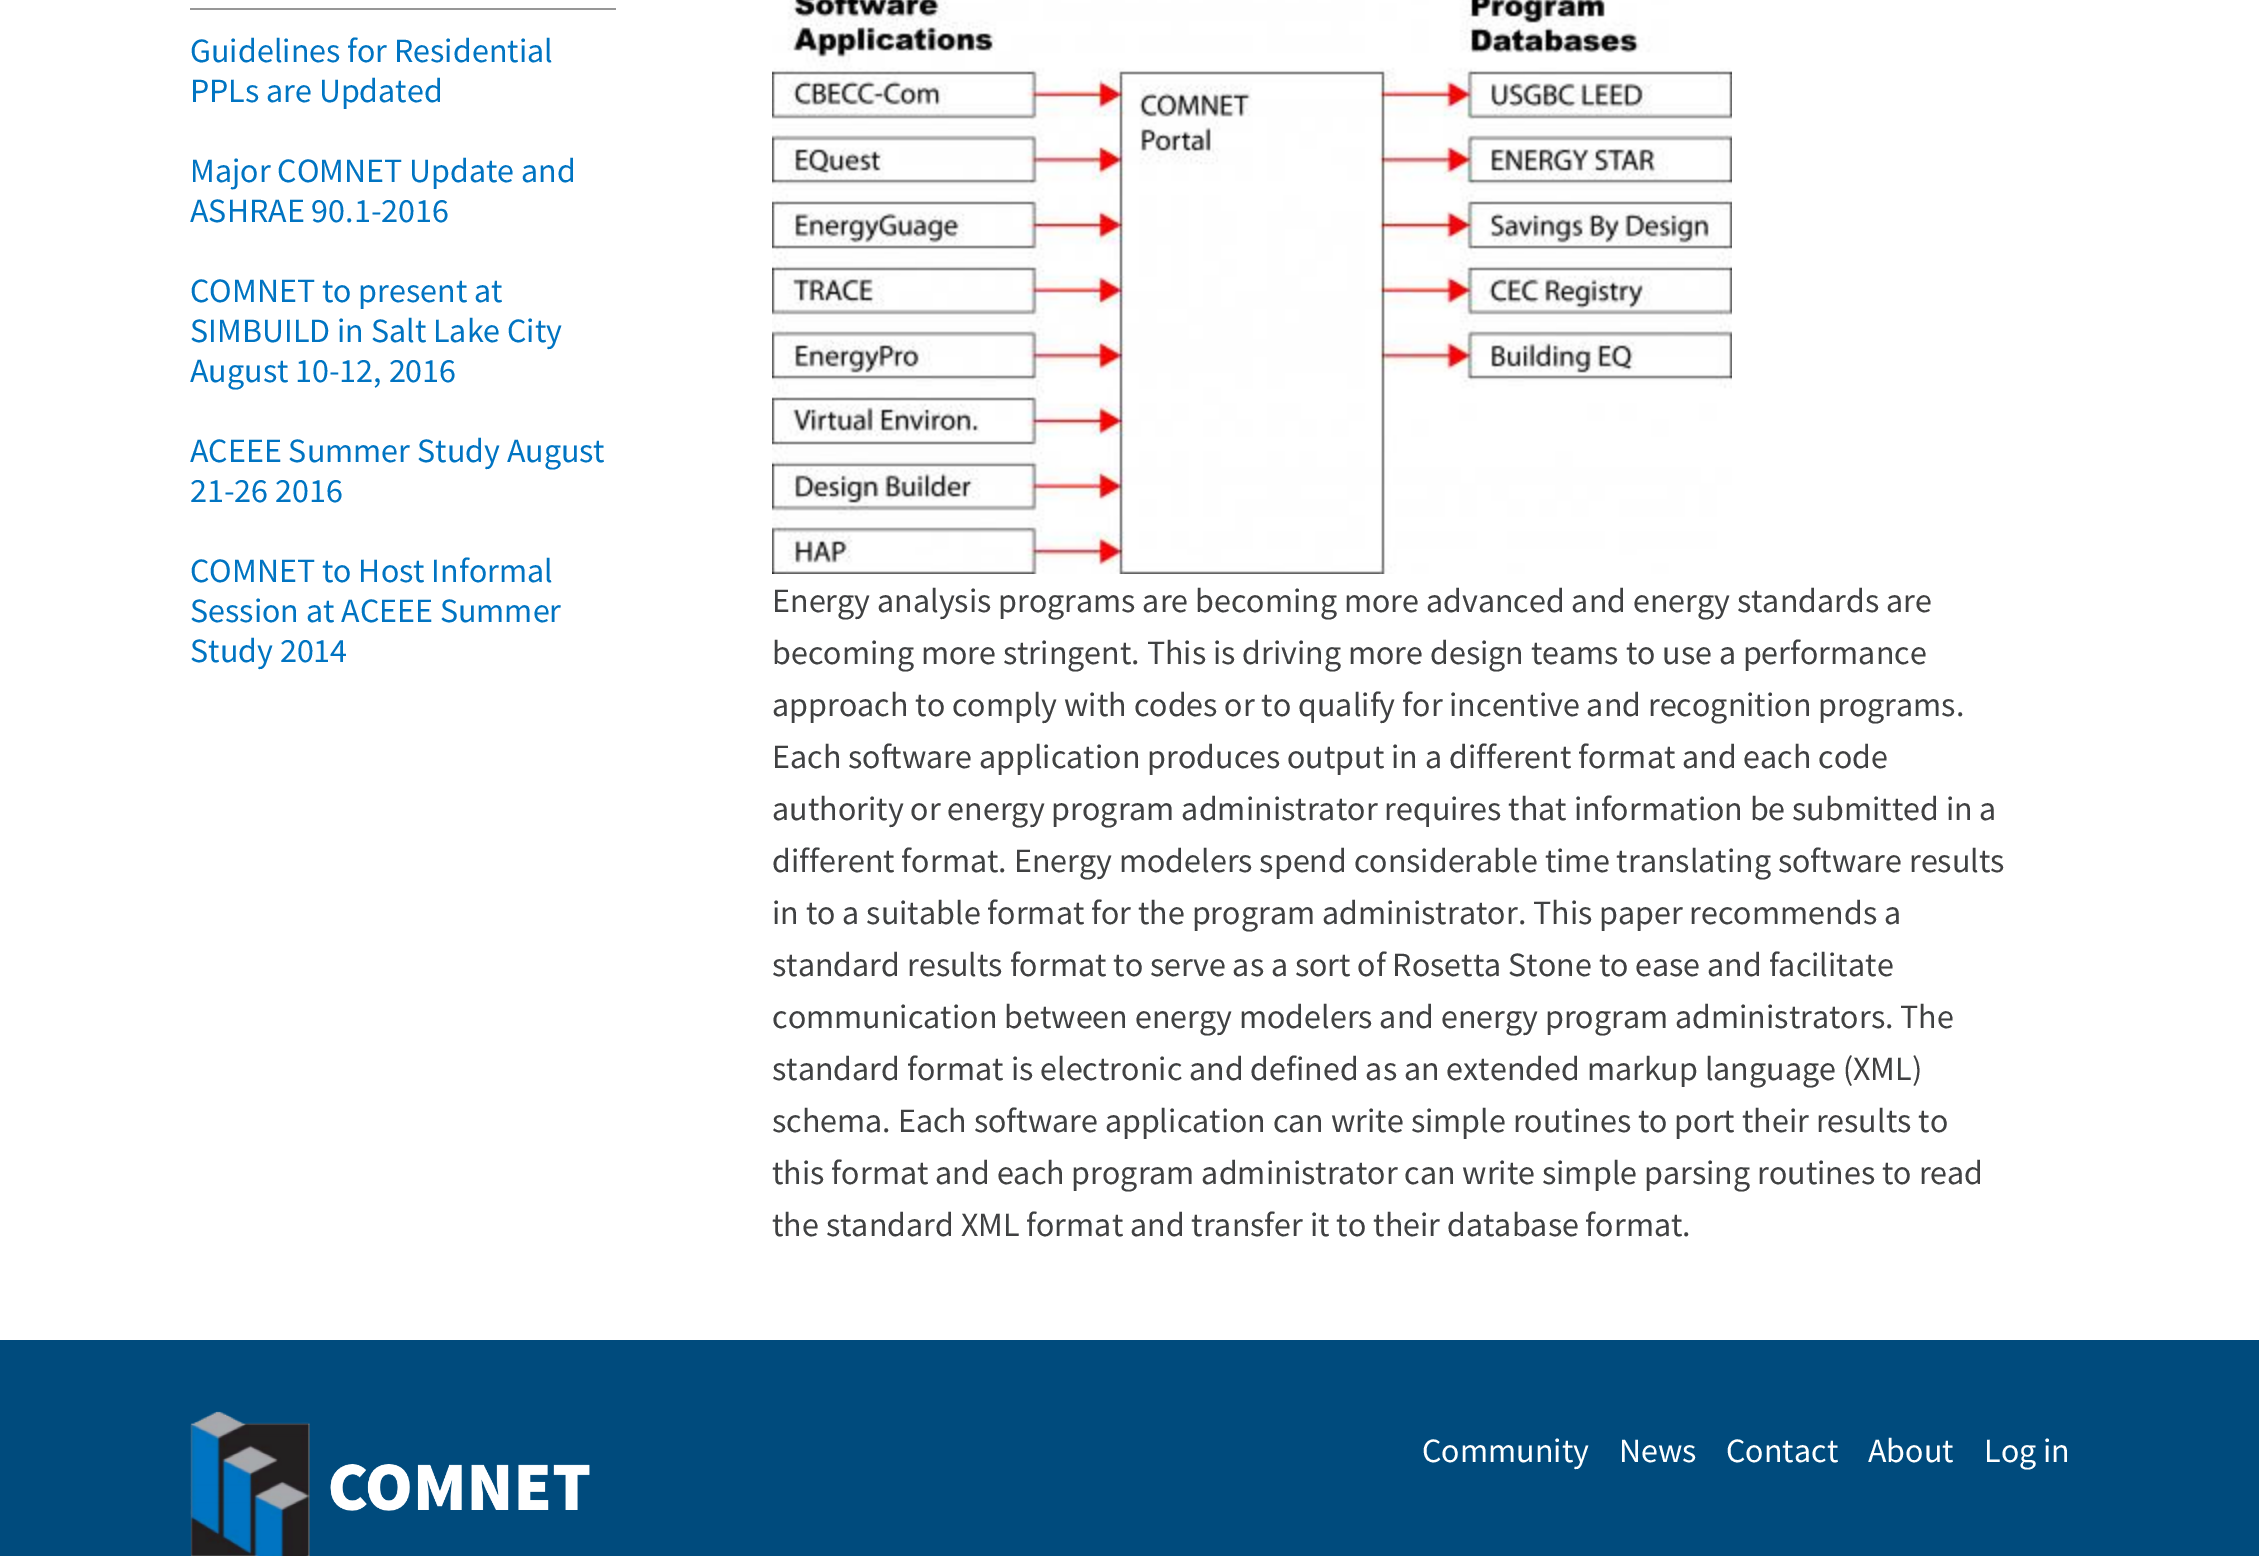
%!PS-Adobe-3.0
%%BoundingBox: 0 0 2259 1556
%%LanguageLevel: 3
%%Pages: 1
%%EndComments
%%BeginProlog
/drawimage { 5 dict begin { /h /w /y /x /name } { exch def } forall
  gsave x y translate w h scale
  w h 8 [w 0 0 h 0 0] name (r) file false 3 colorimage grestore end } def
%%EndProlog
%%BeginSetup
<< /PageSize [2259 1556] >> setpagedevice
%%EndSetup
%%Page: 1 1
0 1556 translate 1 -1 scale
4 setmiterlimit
1 setgray
0 0 2259 1556 rectfill
0.592 setgray
190 8 426 2 rectfill
(images/1.raw) 772 0 960 574 drawimage
0 0.294 0.49 setrgbcolor
0 1340 2259 216 rectfill
(images/2.raw) 190 1411 400 145 drawimage
/SourceSansPro-Regular [34 0 0 -34 0 0] selectfont
0 0.455 0.761 setrgbcolor
190 62 moveto (Guidelines for Residential) show
190 102 moveto (PPLs are Updated) show
190 182 moveto (Major COMNET Update and) show
190 222 moveto (ASHRAE 90.1-2016) show
190 302 moveto (COMNET to present at) show
190 342 moveto (SIMBUILD in Salt Lake City) show
190 382 moveto (August 10-12, 2016) show
190 462 moveto (ACEEE Summer Study August) show
190 502 moveto (21-26 2016) show
190 582 moveto (COMNET to Host Informal) show
190 622 moveto (Session at ACEEE Summer) show
190 662 moveto (Study 2014) show
0.251 0.255 0.259 setrgbcolor
772 612 moveto (Energy analysis programs are becoming more advanced and energy standards are) show
772 664 moveto (becoming more stringent. This is driving more design teams to use a performance) show
772 716 moveto (approach to comply with codes or to qualify for incentive and recognition programs.) show
772 768 moveto (Each software application produces output in a different format and each code) show
772 820 moveto (authority or energy program administrator requires that information be submitted in a) show
772 872 moveto (different format. Energy modelers spend considerable time translating software results) show
772 924 moveto (in to a suitable format for the program administrator. This paper recommends a) show
772 976 moveto (standard results format to serve as a sort of Rosetta Stone to ease and facilitate) show
772 1028 moveto (communication between energy modelers and energy program administrators. The) show
772 1080 moveto (standard format is electronic and defined as an extended markup language \(XML\)) show
772 1132 moveto (schema. Each software application can write simple routines to port their results to) show
772 1184 moveto (this format and each program administrator can write simple parsing routines to read) show
772 1236 moveto (the standard XML format and transfer it to their database format.) show
1 setgray
1422 1462 moveto (Community) show
1619 1462 moveto (News) show
1726 1462 moveto (Contact) show
1868 1462 moveto (About) show
1984 1462 moveto (Log in) show
showpage
%%EOF
